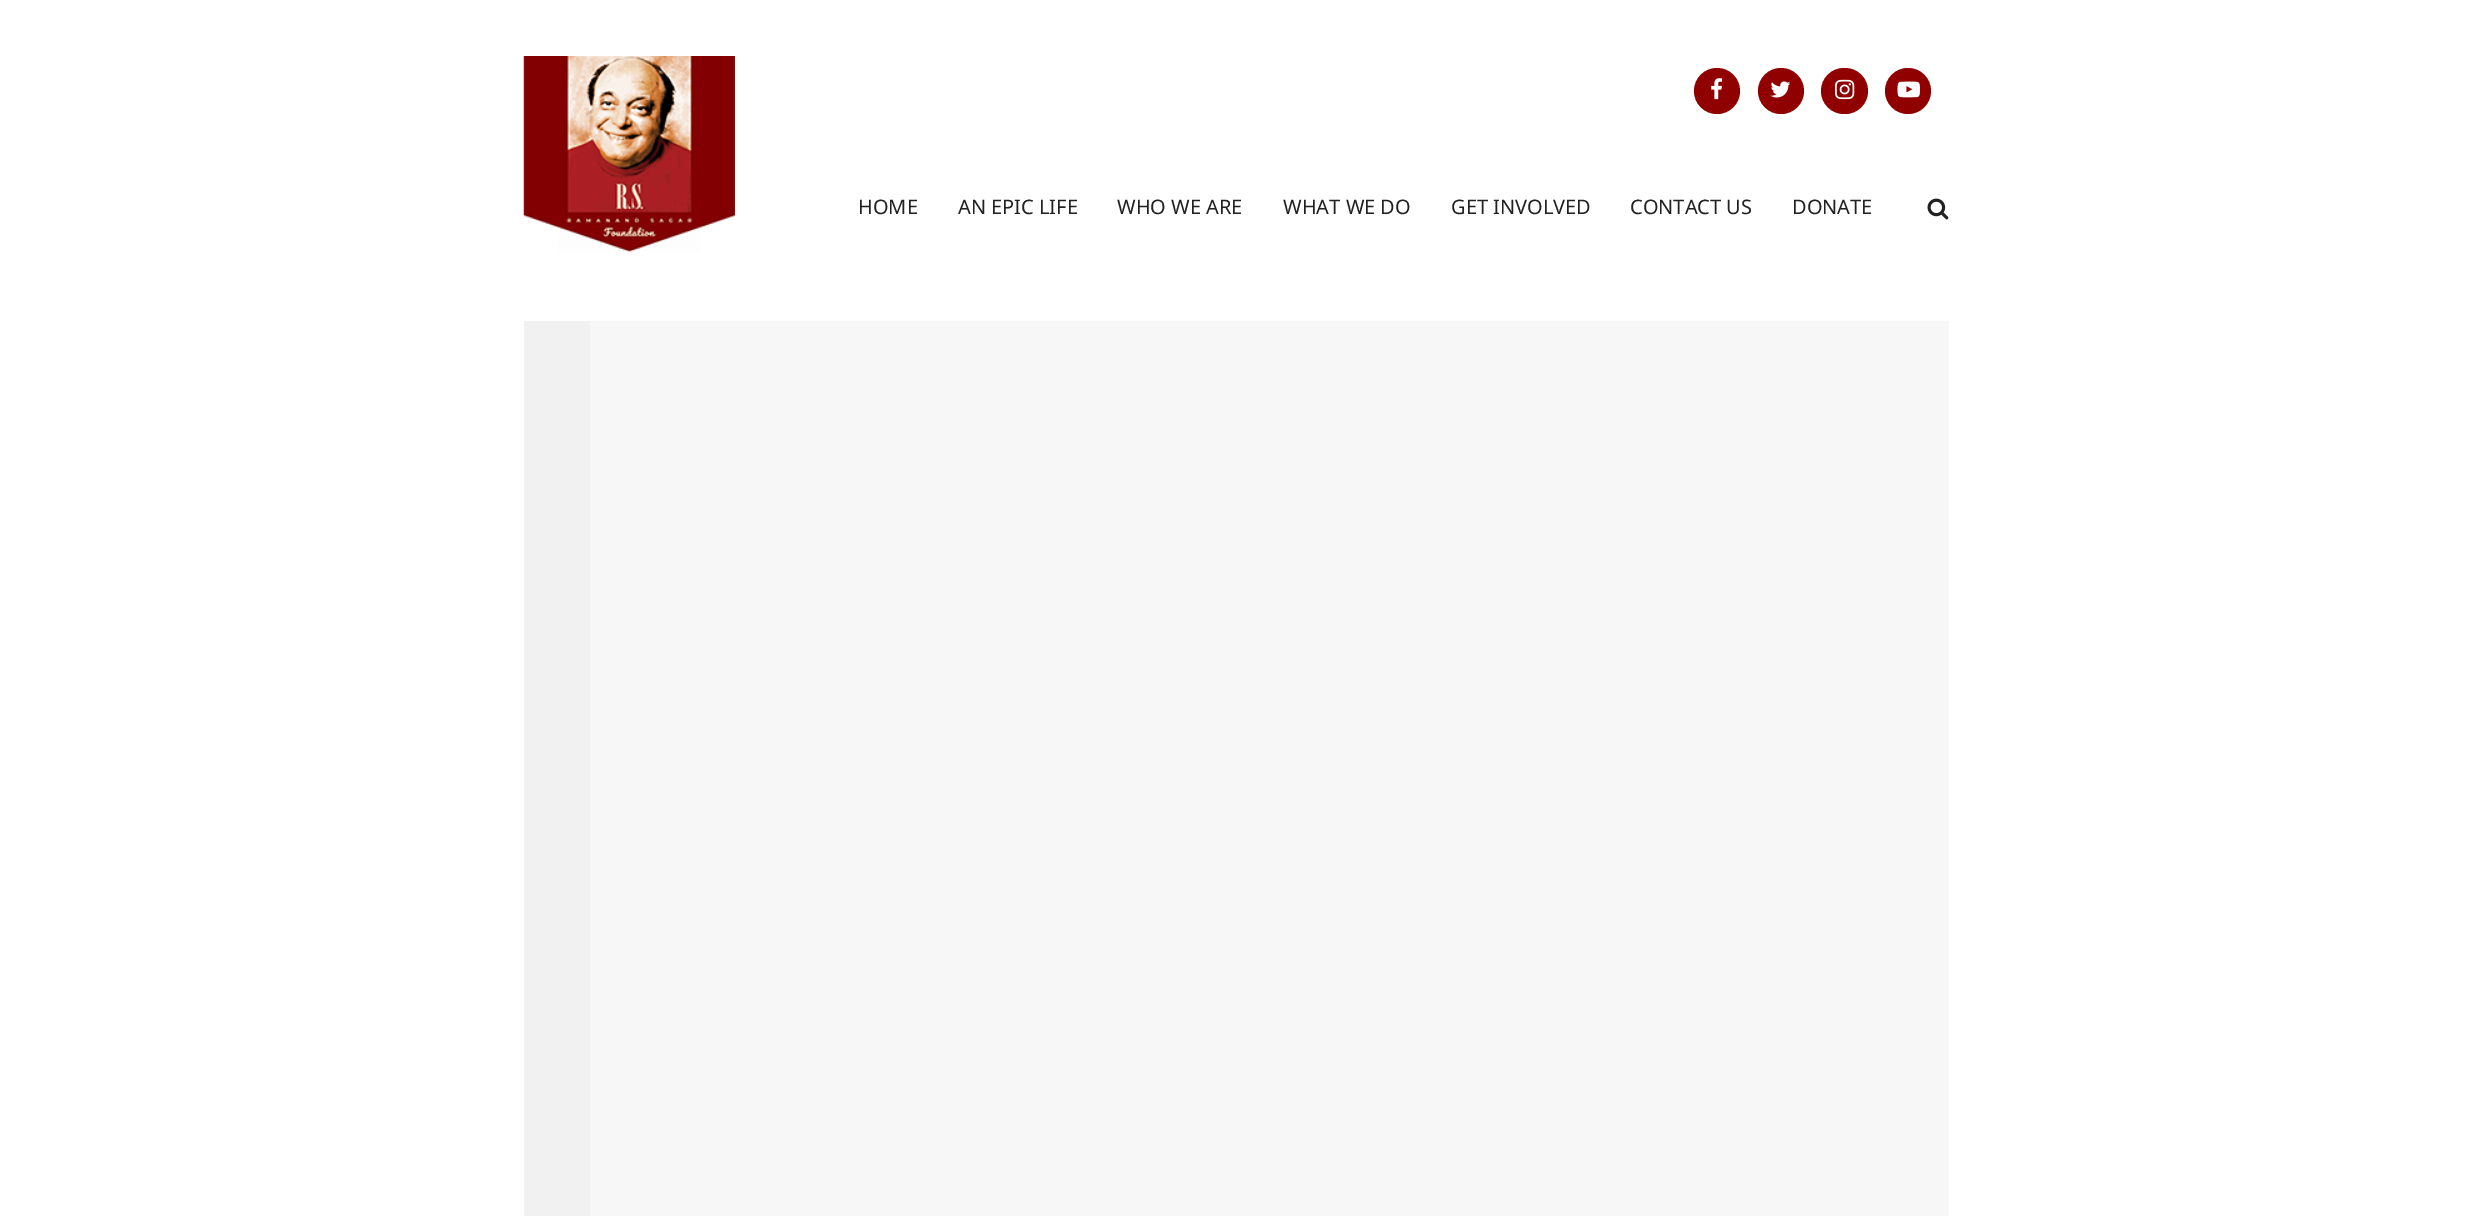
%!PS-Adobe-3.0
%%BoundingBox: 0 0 2472 1216
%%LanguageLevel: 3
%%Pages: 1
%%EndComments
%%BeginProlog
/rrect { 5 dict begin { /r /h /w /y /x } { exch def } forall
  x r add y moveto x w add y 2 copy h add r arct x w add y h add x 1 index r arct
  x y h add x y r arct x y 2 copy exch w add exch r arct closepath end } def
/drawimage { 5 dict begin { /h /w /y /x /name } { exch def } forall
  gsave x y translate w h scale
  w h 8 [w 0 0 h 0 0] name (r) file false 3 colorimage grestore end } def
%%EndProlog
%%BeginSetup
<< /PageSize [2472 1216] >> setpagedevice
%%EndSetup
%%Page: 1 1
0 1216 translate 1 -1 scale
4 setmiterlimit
1 setgray
0 0 2472 1216 rectfill
0.565 0 0 setrgbcolor
newpath 1717 91 23 0 360 arc closepath fill
(images/1.raw) 1711 78 12 22 drawimage
newpath 1781 91 23 0 360 arc closepath fill
(images/2.raw) 1770 81 21 17 drawimage
1821 68 47 46 23 rrect fill
(images/3.raw) 1835 79 20 21 drawimage
newpath 1908 91 23 0 360 arc closepath fill
(images/4.raw) 1897 81 23 17 drawimage
(images/5.raw) 523 56 212 196 drawimage
(images/6.raw) 1927 198 22 22 drawimage
0.969 setgray
590 321 1359 895 rectfill
0.945 setgray
524 321 66 895 rectfill
/NotoSans-Regular [20 0 0 -20 0 0] selectfont
0.129 setgray
858 214 moveto (HOME) show
958 214 moveto (AN EPIC LIFE) show
1117 214 moveto (WHO WE ARE) show
1283 214 moveto (WHAT WE DO) show
1451 214 moveto (GET INVOLVED) show
1630 214 moveto (CONTACT US) show
1792 214 moveto (DONATE) show
showpage
%%EOF
